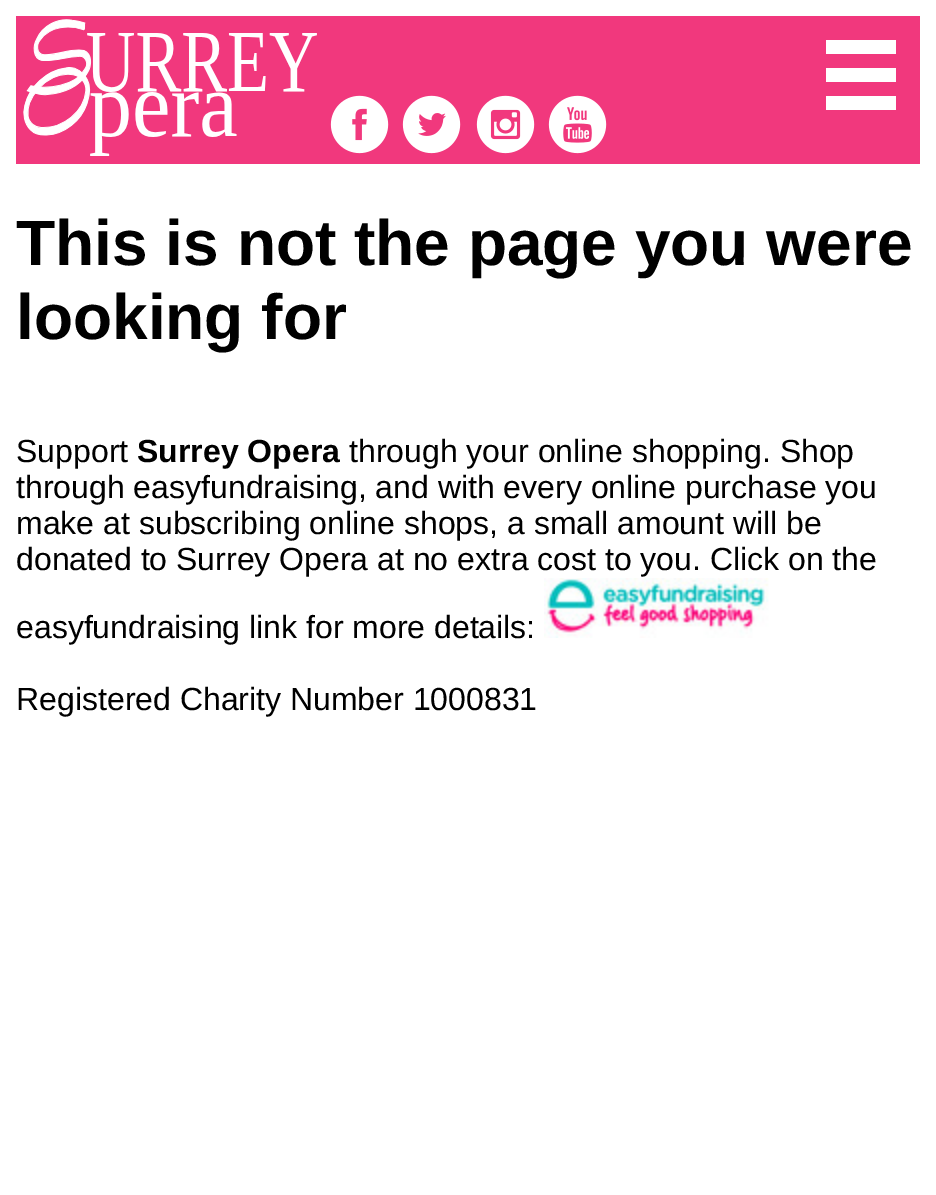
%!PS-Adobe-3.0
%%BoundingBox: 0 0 936 1195
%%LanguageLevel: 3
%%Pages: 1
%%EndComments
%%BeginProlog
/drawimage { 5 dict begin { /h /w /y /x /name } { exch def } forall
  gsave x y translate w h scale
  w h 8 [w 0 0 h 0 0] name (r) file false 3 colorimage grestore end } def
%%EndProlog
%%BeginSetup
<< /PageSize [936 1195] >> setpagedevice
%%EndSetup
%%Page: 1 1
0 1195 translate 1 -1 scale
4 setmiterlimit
1 setgray
0 0 936 1195 rectfill
0.945 0.22 0.49 setrgbcolor
16 16 904 148 rectfill
(images/1.raw) 23 19 294 137 drawimage
1 setgray
826 40 70 14 rectfill
826 68 70 14 rectfill
826 96 70 14 rectfill
(images/2.raw) 330 95 59 59 drawimage
(images/3.raw) 402 95 59 59 drawimage
(images/4.raw) 476 95 59 59 drawimage
(images/5.raw) 548 95 59 59 drawimage
(images/6.raw) 544 578 225 60 drawimage
/LiberationSans-Bold [64 0 0 -64 0 0] selectfont
0 setgray
16 265 moveto (This is not the page you were) show
16 339 moveto (looking for) show
/LiberationSans-Regular [32 0 0 -32 0 0] selectfont
16 462 moveto (Support) show
/LiberationSans-Bold [32 0 0 -32 0 0] selectfont
137 462 moveto (Surrey Opera) show
/LiberationSans-Regular [32 0 0 -32 0 0] selectfont
349 462 moveto (through your online shopping. Shop) show
16 498 moveto (through easyfundraising, and with every online purchase you) show
16 534 moveto (make at subscribing online shops, a small amount will be) show
16 570 moveto (donated to Surrey Opera at no extra cost to you. Click on the) show
16 638 moveto (easyfundraising link for more details:) show
16 710 moveto (Registered Charity Number 1000831) show
showpage
%%EOF
